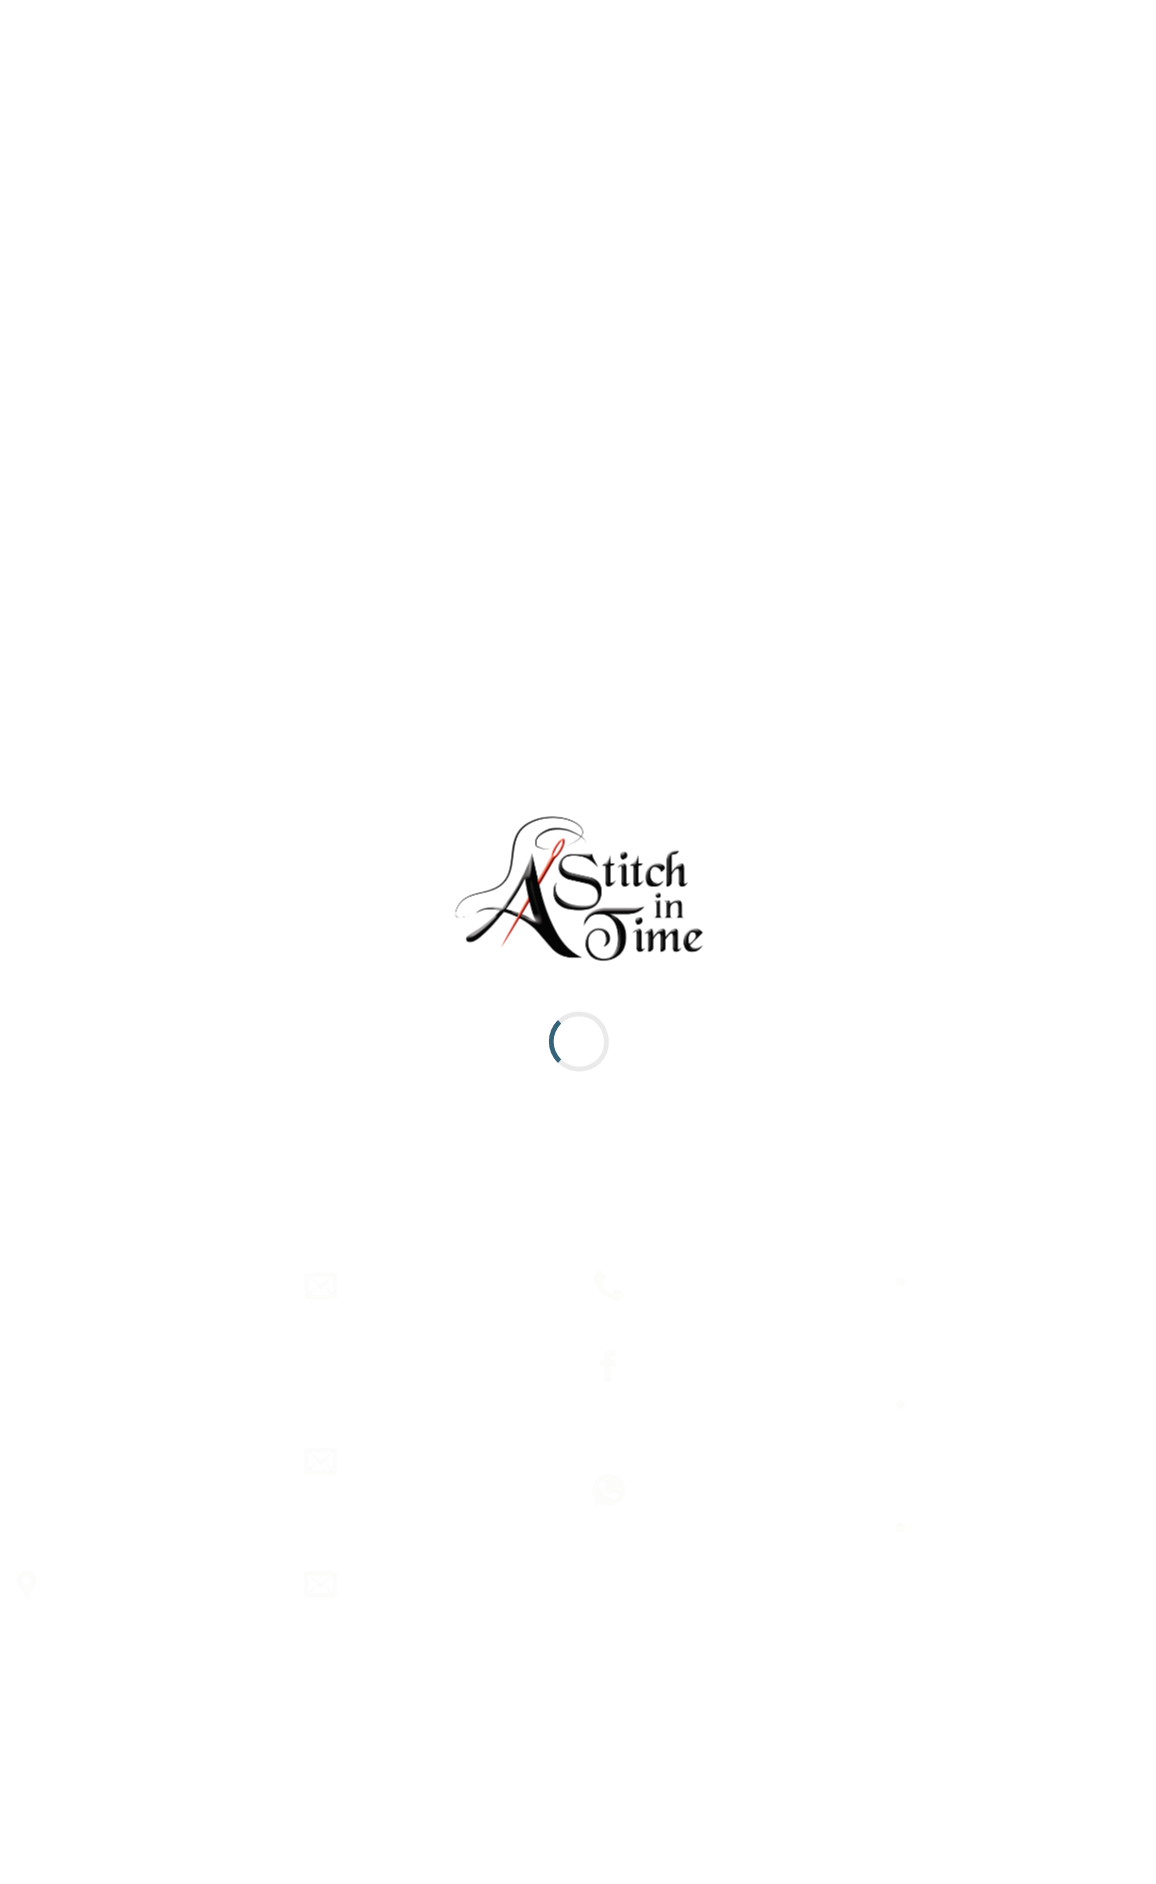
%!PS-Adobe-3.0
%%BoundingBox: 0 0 1156 1884
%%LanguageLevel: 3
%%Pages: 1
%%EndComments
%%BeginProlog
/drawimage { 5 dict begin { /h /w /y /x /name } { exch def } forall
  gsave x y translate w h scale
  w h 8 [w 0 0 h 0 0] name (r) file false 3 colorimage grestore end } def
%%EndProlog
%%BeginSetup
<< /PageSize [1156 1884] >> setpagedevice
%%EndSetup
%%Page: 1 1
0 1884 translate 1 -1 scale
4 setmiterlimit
1 setgray
0 0 1156 1884 rectfill
(images/1.raw) 454 816 249 146 drawimage
0.922 0.918 0.918 setrgbcolor
4.5 setlinewidth
newpath 559.5 1022 moveto 564.5 1016.5 571.5 1014 579 1014 curveto 612 1014 617 1062.5 584.5 1068.5 curveto 575.5 1070.5 566 1067.5 559.5 1061 curveto stroke
0.208 0.388 0.475 setrgbcolor
newpath 559.5 1061 moveto 548.5 1050.5 548.5 1032.5 559.5 1022 curveto stroke
(images/2.raw) 304 1272 33 27 drawimage
(images/3.raw) 304 1448 33 27 drawimage
(images/3.raw) 304 1571 33 27 drawimage
(images/4.raw) 593 1270 31 31 drawimage
(images/5.raw) 600 1349 16 33 drawimage
(images/6.raw) 592 1473 33 34 drawimage
0.988 0.988 0.984 setrgbcolor
newpath 900.5 1281.5 4.5 0 360 arc closepath fill
newpath 900.5 1404.5 4.5 0 360 arc closepath fill
newpath 900.5 1527.5 4.5 0 360 arc closepath fill
(images/7.raw) 16 1570 21 33 drawimage
showpage
%%EOF
